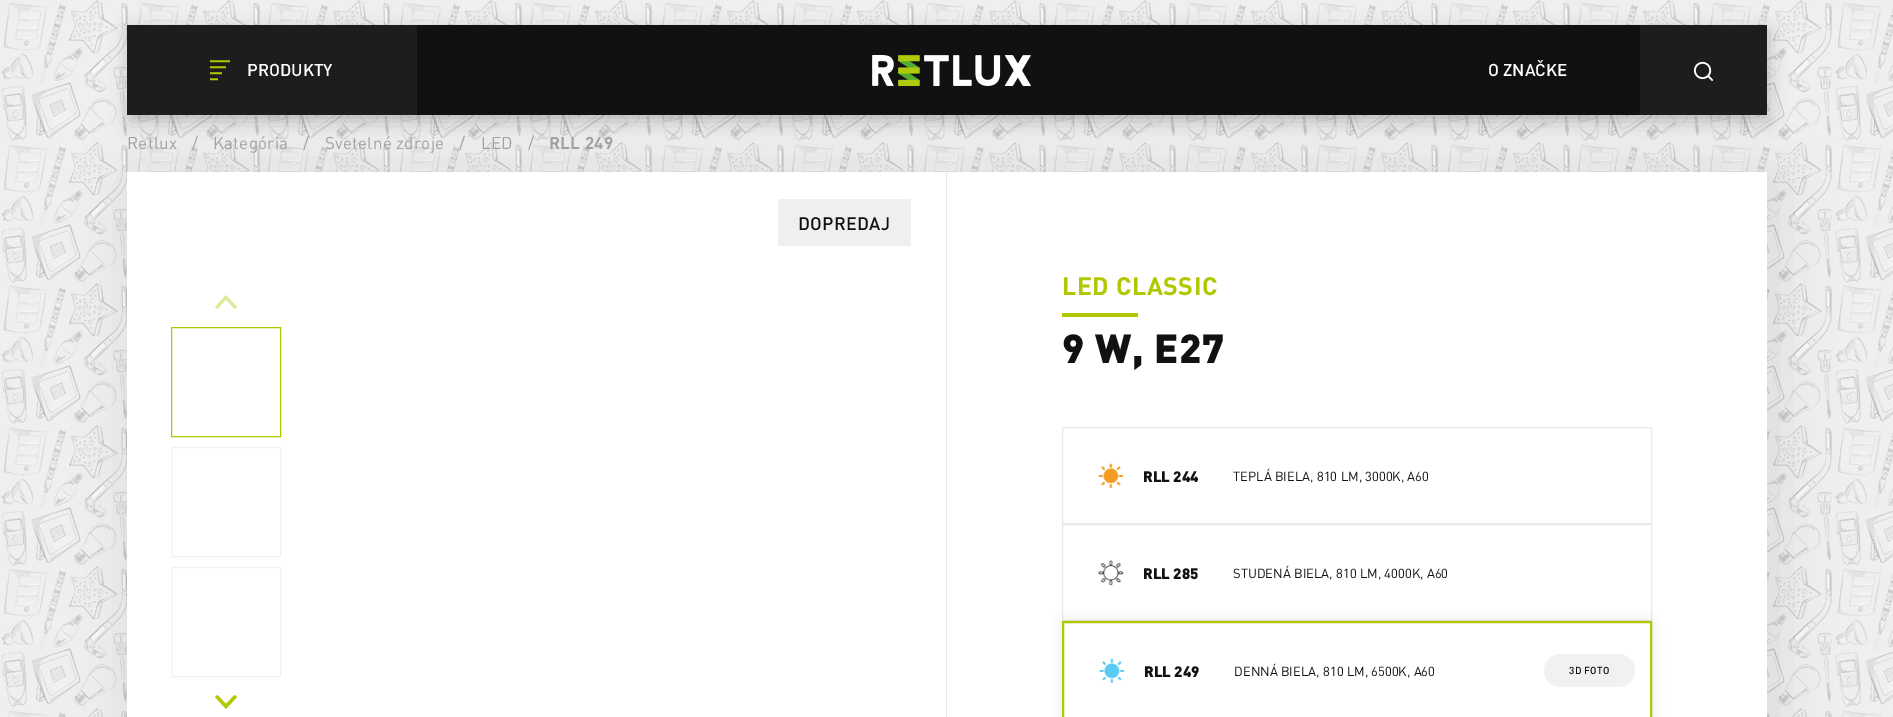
%!PS-Adobe-3.0
%%BoundingBox: 0 0 1893 717
%%LanguageLevel: 3
%%Pages: 1
%%EndComments
%%BeginProlog
/setalpha { dup .setfillconstantalpha .setstrokeconstantalpha } def
/rrect { 5 dict begin { /r /h /w /y /x } { exch def } forall
  x r add y moveto x w add y 2 copy h add r arct x w add y h add x 1 index r arct
  x y h add x y r arct x y 2 copy exch w add exch r arct closepath end } def
/softshadow { 12 dict begin { /a /b /q /h /w /y /x } { exch def } forall gsave /was 0 def
  9 -2 -9 { dup b mul 4 div /e exch def 1 sub .425 mul 2.718 exch exp 1 add a .99 .min exch div /now exch def
    1 1 now sub 1 was sub div sub setalpha /was now def
    w h .min e 2 mul add 0 gt { x e sub y e sub w e 2 mul add h e 2 mul add
      q e add b .6 mul add w h .min 2 div e add .min 0 .max rrect fill } if } for grestore end } def
/drawimage { 5 dict begin { /h /w /y /x /name } { exch def } forall
  gsave x y translate w h scale
  w h 8 [w 0 0 h 0 0] name (r) file false 3 colorimage grestore end } def
%%EndProlog
%%BeginSetup
<< /PageSize [1893 717] /PageUsesTransparency true >> setpagedevice
%%EndSetup
%%Page: 1 1
0 .pushpdf14devicefilter
0 717 translate 1 -1 scale
4 setmiterlimit
0.937 setgray
0 0 1893 717 rectfill
(images/4.raw) 1 0 1892 717 drawimage
0 setgray
129 31 1640 90 0 9 0.23 softshadow
133 178 1640 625 0 28.5 0.11 softshadow
0.067 setgray
417 25 1223 90 rectfill
0.114 setgray
127 25 290 90 rectfill
(images/1.raw) 210 60 20 21 drawimage
(images/2.raw) 872 55 159 31 drawimage
1640 25 127 90 rectfill
(images/3.raw) 1693 61 21 20 drawimage
1 setgray
127 172 1640 545 rectfill
0.914 setgray
946 172 1 545 rectfill
0.937 setgray
778 199 133 47 2 rrect fill
0.878 0.914 0.6 setrgbcolor
newpath 226 295 moveto 237 307 lineto 234.5 309 lineto 226 299.5 lineto 217.5 309 lineto 215 307 lineto closepath fill
0.694 0.784 0 setrgbcolor
171.5 327.5 109 109 rectstroke
0.945 setgray
171.5 447.5 109 109 rectstroke
171.5 567.5 109 109 rectstroke
0.694 0.784 0 setrgbcolor
newpath 226 709 moveto 215 697 lineto 217.5 695 lineto 226 704 lineto 234.5 695 lineto 237 697 lineto closepath fill
1062 313 76 4 rectfill
0.914 setgray
newpath 1064 427.5 moveto 1650 427.5 lineto 1651 427.5 1651.5 428 1651.5 429 curveto 1651.5 523.5 lineto 1062.5 523.5 lineto 1062.5 429 lineto 1062.5 428 1063 427.5 1064 427.5 curveto closepath stroke
(images/5.raw) 1098 463 26 25 drawimage
1062.5 524.5 589 96 rectstroke
(images/6.raw) 1098 560 26 25 drawimage
gsave
newpath 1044 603 moveto 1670 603 lineto 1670 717 lineto 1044 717 lineto closepath 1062 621 moveto 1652 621 lineto 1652 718 lineto 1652 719 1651 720 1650 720 curveto 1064 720 lineto 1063 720 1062 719 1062 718 curveto closepath eoclip newpath
0 setgray
1062 621 590 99 2 5.5 0.11 softshadow
grestore
0.694 0.784 0 setrgbcolor
2 setlinewidth
1063 622 588 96 rectstroke
(images/7.raw) 1099 658 26 25 drawimage
0.945 setgray
1544 654 91 33 16.5 rrect fill
/DIN-Medium [17 0 0 -17 0 0] selectfont
1 setgray
247 76 moveto (PRODUKTY) show
1488 76 moveto (O ZNAČKE) show
/DIN-Regular [17 0 0 -17 0 0] selectfont
0.631 setgray
127 149 moveto 0.25 0 (Retlux) ashow
192 149 moveto 0.25 0 (/) ashow
213 149 moveto 0.25 0 (Kategória) ashow
303 149 moveto 0.25 0 (/) ashow
325 149 moveto 0.25 0 (Svetelné zdroje) ashow
459 149 moveto 0.25 0 (/) ashow
481 149 moveto 0.25 0 (LED) ashow
528 149 moveto 0.25 0 (/) ashow
/DIN-Bold [17 0 0 -17 0 0] selectfont
549 149 moveto 0.25 0 (RLL 249) ashow
/DIN-Medium [18 0 0 -18 0 0] selectfont
0.067 setgray
798 230 moveto 0.25 0 (DOPREDAJ) ashow
/DIN-Bold [25 0 0 -25 0 0] selectfont
0.694 0.784 0 setrgbcolor
1062 295 moveto 0.5 0 (LED CLASSIC) ashow
/DIN-Black [40 0 0 -40 0 0] selectfont
0.067 setgray
1062 363 moveto 0.75 0 (9 W, E27) ashow
/DIN-Black [15 0 0 -15 0 0] selectfont
1143 482 moveto (RLL 244) show
/DIN-Regular [13 0 0 -13 0 0] selectfont
1233 481 moveto (TEPLÁ BIELA, 810 LM, 3000K, A60) show
/DIN-Black [15 0 0 -15 0 0] selectfont
1143 579 moveto (RLL 285) show
/DIN-Regular [13 0 0 -13 0 0] selectfont
1233 578 moveto (STUDENÁ BIELA, 810 LM, 4000K, A60) show
/DIN-Black [15 0 0 -15 0 0] selectfont
1144 677 moveto (RLL 249) show
/DIN-Regular [13 0 0 -13 0 0] selectfont
1234 676 moveto (DENNÁ BIELA, 810 LM, 6500K, A60) show
/DIN-Medium [10 0 0 -10 0 0] selectfont
1569 674 moveto 0.25 0 (3D FOTO) ashow
.poppdf14devicefilter showpage
%%EOF
